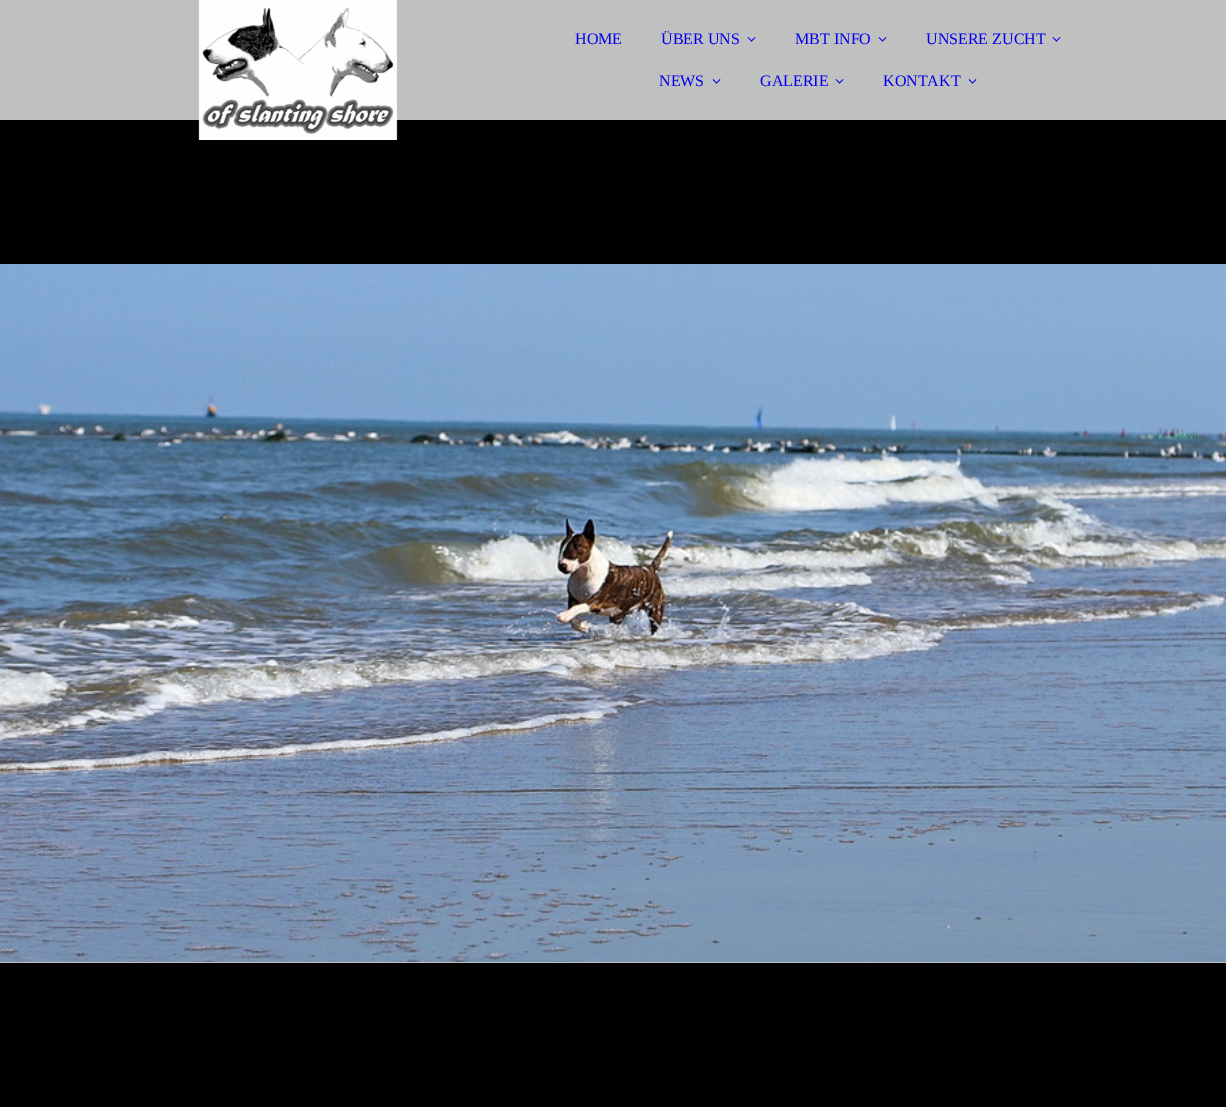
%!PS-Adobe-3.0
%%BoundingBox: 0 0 1226 1107
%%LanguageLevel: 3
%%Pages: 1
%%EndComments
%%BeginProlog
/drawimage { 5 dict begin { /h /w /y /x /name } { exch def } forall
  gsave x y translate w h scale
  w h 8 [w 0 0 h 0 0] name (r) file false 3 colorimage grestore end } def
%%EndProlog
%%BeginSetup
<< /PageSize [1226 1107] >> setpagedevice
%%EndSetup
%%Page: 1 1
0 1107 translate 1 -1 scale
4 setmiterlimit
0.753 setgray
0 0 1226 1107 rectfill
0 setgray
0 120 1226 144 rectfill
(images/1.raw) 198 0 200 140 drawimage
(images/2.raw) 747 37 9 5 drawimage
(images/2.raw) 878 37 9 5 drawimage
(images/2.raw) 1052 37 9 5 drawimage
(images/2.raw) 712 79 9 5 drawimage
(images/2.raw) 835 79 9 5 drawimage
(images/2.raw) 968 79 9 5 drawimage
(images/3.raw) 0 264 1226 698 drawimage
0 963 1226 144 rectfill
/LiberationSerif-Regular [16 0 0 -16 0 0] selectfont
0 0 0.933 setrgbcolor
575 44 moveto (HOME) show
661 44 moveto (ÜBER UNS) show
795 44 moveto (MBT INFO) show
926 44 moveto (UNSERE ZUCHT) show
659 86 moveto (NEWS) show
760 86 moveto (GALERIE) show
883 86 moveto (KONTAKT) show
showpage
%%EOF
